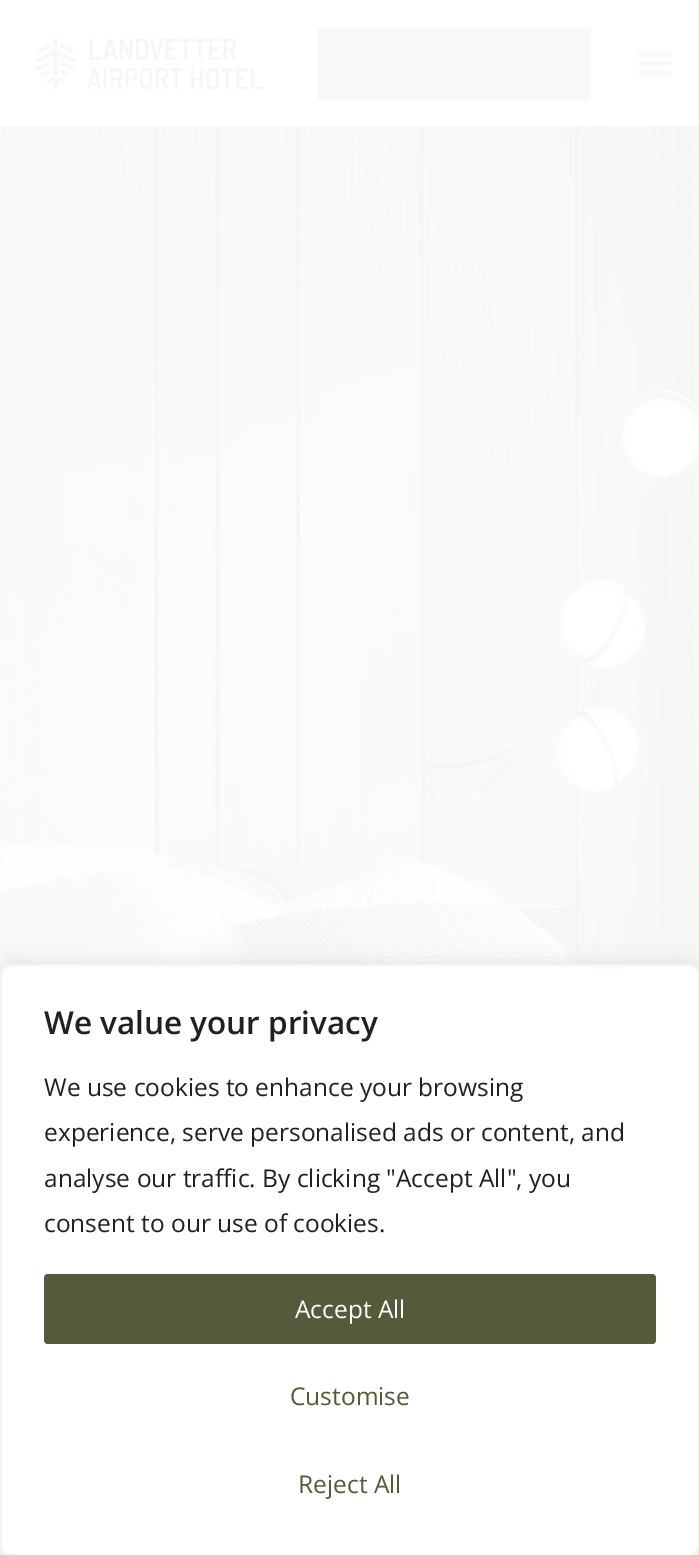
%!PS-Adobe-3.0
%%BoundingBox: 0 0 699 1555
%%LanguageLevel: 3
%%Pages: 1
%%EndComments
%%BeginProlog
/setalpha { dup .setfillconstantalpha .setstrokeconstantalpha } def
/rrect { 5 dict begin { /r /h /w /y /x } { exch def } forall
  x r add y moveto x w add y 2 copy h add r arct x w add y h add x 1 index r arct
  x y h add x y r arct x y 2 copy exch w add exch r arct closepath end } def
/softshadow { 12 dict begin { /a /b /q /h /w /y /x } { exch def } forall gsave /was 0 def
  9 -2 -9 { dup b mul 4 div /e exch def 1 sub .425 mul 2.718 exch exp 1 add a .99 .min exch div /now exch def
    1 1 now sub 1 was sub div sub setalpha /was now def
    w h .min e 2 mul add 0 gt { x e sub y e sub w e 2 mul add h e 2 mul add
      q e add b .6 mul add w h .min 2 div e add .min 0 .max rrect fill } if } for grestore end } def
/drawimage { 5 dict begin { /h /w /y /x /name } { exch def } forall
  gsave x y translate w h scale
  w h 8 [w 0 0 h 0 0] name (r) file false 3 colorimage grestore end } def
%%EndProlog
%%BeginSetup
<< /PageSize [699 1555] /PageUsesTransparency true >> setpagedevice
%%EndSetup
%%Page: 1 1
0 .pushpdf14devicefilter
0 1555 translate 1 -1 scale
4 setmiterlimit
1 setgray
0 0 699 1555 rectfill
(images/1.raw) 35 38 228 52 drawimage
0.973 0.973 0.969 setrgbcolor
newpath 318 29 moveto 589 29 lineto 589 99 lineto 318 99 lineto closepath gsave fill grestore
0.976 0.976 0.973 setrgbcolor
2 setlinewidth
stroke
(images/2.raw) 636 51 37 25 drawimage
(images/3.raw) 0 126 699 1429 drawimage
0.675 0.671 0.671 setrgbcolor
0 963 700 591 11 9 0.3 softshadow
1 setgray
1 965 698 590 10 rrect gsave fill grestore
0.957 setgray
stroke
0.329 0.353 0.227 setrgbcolor
44 1274 612 70 4 rrect fill
/OpenSans-SemiBold [31.5 0 0 -31.5 0 0] selectfont
0.129 setgray
44 1034 moveto (We value your privacy) show
/OpenSans-Regular [24.5 0 0 -24.5 0 0] selectfont
44 1096 moveto (We use cookies to enhance your browsing) show
44 1141 moveto (experience, serve personalised ads or content, and) show
44 1187 moveto (analyse our traffic. By clicking "Accept All", you) show
44 1232 moveto (consent to our use of cookies.) show
1 setgray
295 1318 moveto (Accept All) show
0.329 0.353 0.227 setrgbcolor
290 1405 moveto (Customise) show
298 1493 moveto (Reject All) show
.poppdf14devicefilter showpage
%%EOF
